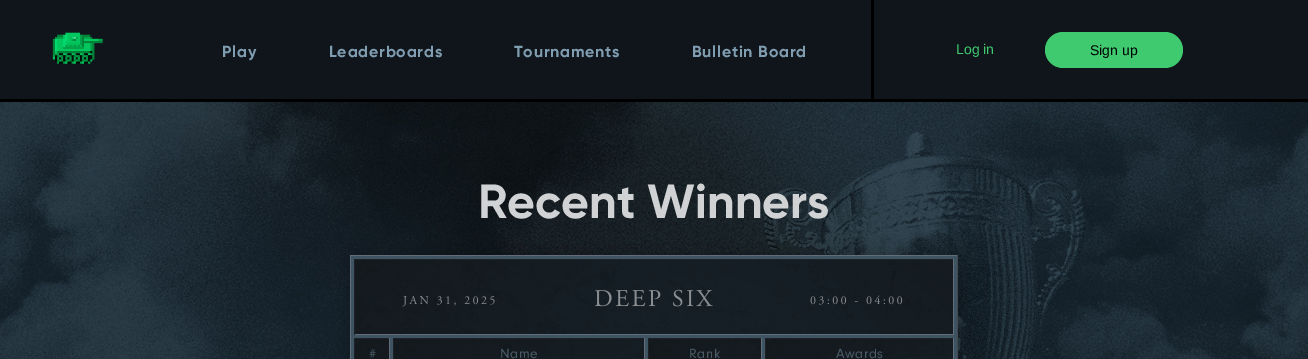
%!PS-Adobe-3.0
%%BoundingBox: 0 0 1308 359
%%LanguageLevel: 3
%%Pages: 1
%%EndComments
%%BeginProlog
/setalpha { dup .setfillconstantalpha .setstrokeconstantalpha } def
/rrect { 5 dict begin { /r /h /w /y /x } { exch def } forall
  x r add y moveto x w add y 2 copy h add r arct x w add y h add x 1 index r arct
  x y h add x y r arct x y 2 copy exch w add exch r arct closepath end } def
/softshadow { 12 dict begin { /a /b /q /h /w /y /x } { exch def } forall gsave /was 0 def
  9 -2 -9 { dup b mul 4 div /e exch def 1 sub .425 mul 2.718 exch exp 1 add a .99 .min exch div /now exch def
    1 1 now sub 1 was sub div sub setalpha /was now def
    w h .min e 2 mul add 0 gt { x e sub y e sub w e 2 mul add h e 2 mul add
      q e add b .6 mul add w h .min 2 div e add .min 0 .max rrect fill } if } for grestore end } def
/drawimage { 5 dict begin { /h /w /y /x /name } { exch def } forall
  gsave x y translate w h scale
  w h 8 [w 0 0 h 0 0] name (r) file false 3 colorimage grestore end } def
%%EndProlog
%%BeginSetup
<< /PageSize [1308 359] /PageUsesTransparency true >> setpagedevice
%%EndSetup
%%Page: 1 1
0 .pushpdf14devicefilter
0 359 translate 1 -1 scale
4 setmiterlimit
0.059 0.082 0.102 setrgbcolor
0 0 1308 359 rectfill
0 setgray
0 99 1308 3 rectfill
(images/1.raw) 52 32 51 32 drawimage
871 0 3 99 rectfill
0.247 0.792 0.439 setrgbcolor
1045 32 138 36 18 rrect fill
(images/2.raw) 0 102 1308 257 drawimage
0 setgray
350 255 610 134 0 10 0.25 softshadow
0.243 0.329 0.388 setrgbcolor
351 256 606 103 rectfill
0.388 0.427 0.478 setrgbcolor
350 255 608 1 rectfill
0.259 0.286 0.318 setrgbcolor
957 255 1 104 rectfill
0.388 0.427 0.478 setrgbcolor
350 255 1 104 rectfill
(images/3.raw) 355 260 598 74 drawimage
0.118 0.129 0.145 setrgbcolor
354 259 600 1 rectfill
0.388 0.427 0.478 setrgbcolor
953 259 1 76 rectfill
354 334 600 1 rectfill
0.118 0.129 0.145 setrgbcolor
354 259 1 76 rectfill
(images/4.raw) 402 296 93 11 drawimage
(images/5.raw) 595 289 118 18 drawimage
(images/6.raw) 810 295 93 10 drawimage
(images/7.raw) 355 339 34 20 drawimage
354 338 36 1 rectfill
0.388 0.427 0.478 setrgbcolor
389 338 1 21 rectfill
0.118 0.129 0.145 setrgbcolor
354 338 1 21 rectfill
(images/8.raw) 394 339 250 20 drawimage
393 338 252 1 rectfill
0.388 0.427 0.478 setrgbcolor
644 338 1 21 rectfill
0.118 0.129 0.145 setrgbcolor
393 338 1 21 rectfill
(images/9.raw) 649 339 112 20 drawimage
648 338 114 1 rectfill
0.388 0.427 0.478 setrgbcolor
761 338 1 21 rectfill
0.118 0.129 0.145 setrgbcolor
648 338 1 21 rectfill
(images/10.raw) 766 339 187 20 drawimage
765 338 189 1 rectfill
0.388 0.427 0.478 setrgbcolor
953 338 1 21 rectfill
0.118 0.129 0.145 setrgbcolor
765 338 1 21 rectfill
/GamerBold-Bold [16 0 0 -16 0 0] selectfont
0.502 0.616 0.694 setrgbcolor
222 57 moveto 0.75 0 (Play) ashow
329 57 moveto 0.75 0 (Leaderboards) ashow
514 57 moveto 0.75 0 (Tournaments) ashow
692 57 moveto 0.75 0 (Bulletin Board) ashow
/LiberationSans-Regular [14 0 0 -14 0 0] selectfont
0.247 0.792 0.439 setrgbcolor
956 54 moveto (Log in) show
0 setgray
1090 55 moveto (Sign up) show
/GamerBold-Bold [48 0 0 -48 0 0] selectfont
0.82 0.824 0.831 setrgbcolor
478 218 moveto (Recent Winners) show
/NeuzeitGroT-Regular [14 0 0 -14 0 0] selectfont
0.29 0.357 0.404 setrgbcolor
369 358 moveto 0.5 0 (#) ashow
500 358 moveto 0.5 0 (Name) ashow
689 358 moveto 0.5 0 (Rank) ashow
836 358 moveto 0.5 0 (Awards) ashow
.poppdf14devicefilter showpage
%%EOF
